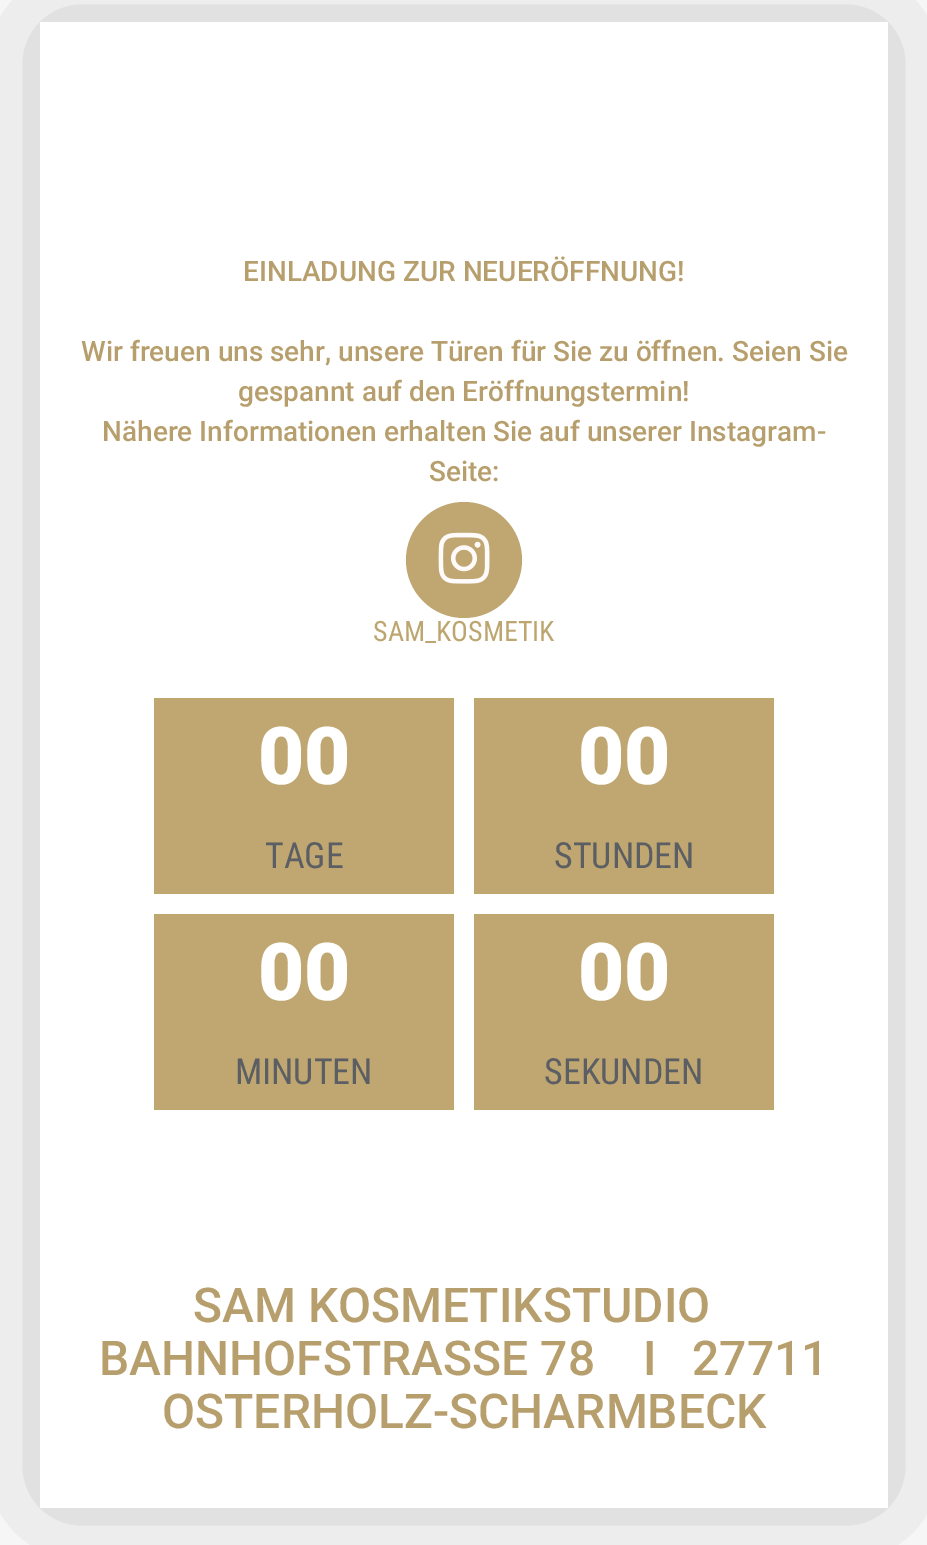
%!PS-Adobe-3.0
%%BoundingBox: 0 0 927 1545
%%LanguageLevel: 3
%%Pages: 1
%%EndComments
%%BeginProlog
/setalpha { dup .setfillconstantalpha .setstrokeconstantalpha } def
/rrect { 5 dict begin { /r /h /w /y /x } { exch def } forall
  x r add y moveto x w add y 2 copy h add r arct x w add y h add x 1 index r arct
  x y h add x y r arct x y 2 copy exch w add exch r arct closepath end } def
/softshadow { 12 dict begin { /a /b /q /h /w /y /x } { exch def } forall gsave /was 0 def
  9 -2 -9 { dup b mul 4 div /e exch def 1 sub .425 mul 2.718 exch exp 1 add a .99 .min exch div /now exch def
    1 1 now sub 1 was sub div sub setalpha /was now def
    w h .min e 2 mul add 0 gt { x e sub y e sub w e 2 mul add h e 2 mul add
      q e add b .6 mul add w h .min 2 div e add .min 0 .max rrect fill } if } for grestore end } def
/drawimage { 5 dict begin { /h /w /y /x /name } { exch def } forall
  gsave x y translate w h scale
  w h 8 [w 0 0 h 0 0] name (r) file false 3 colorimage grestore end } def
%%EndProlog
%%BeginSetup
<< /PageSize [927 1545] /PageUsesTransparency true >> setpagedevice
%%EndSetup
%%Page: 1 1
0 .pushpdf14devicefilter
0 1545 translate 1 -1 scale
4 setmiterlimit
1 setgray
0 0 927 1545 rectfill
gsave
newpath 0 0 moveto 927 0 lineto 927 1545 lineto 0 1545 lineto closepath 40 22 moveto 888 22 lineto 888 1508 lineto 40 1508 lineto closepath eoclip newpath
0 setgray
40 22 848 1486 0 70 0.24 softshadow
grestore
0.753 0.655 0.447 setrgbcolor
newpath 464 560 58 0 360 arc closepath fill
(images/1.raw) 438 532 52 52 drawimage
154 698 300 196 rectfill
474 698 300 196 rectfill
154 914 300 196 rectfill
474 914 300 196 rectfill
/Roboto-Medium [28 0 0 -28 0 0] selectfont
0.718 0.624 0.427 setrgbcolor
243 281 moveto (EINLADUNG ZUR NEUERÖFFNUNG!) show
81 361 moveto (Wir freuen uns sehr, unsere Türen für Sie zu öffnen. Seien Sie) show
238 401 moveto (gespannt auf den Eröffnungstermin!) show
102 441 moveto (Nähere Informationen erhalten Sie auf unserer Instagram-) show
429 481 moveto (Seite:) show
/RobotoCondensed-Regular [28 0 0 -28 0 0] selectfont
0.737 0.647 0.435 setrgbcolor
373 641 moveto (SAM_KOSMETIK) show
/Roboto-Black [80 0 0 -80 0 0] selectfont
1 setgray
258 784 moveto (00) show
/RobotoCondensed-Regular [36 0 0 -36 0 0] selectfont
0.357 0.369 0.384 setrgbcolor
265 868 moveto (TAGE) show
/Roboto-Black [80 0 0 -80 0 0] selectfont
1 setgray
578 784 moveto (00) show
/RobotoCondensed-Regular [36 0 0 -36 0 0] selectfont
0.357 0.369 0.384 setrgbcolor
554 868 moveto (STUNDEN) show
/Roboto-Black [80 0 0 -80 0 0] selectfont
1 setgray
258 1000 moveto (00) show
/RobotoCondensed-Regular [36 0 0 -36 0 0] selectfont
0.357 0.369 0.384 setrgbcolor
235 1084 moveto (MINUTEN) show
/Roboto-Black [80 0 0 -80 0 0] selectfont
1 setgray
578 1000 moveto (00) show
/RobotoCondensed-Regular [36 0 0 -36 0 0] selectfont
0.357 0.369 0.384 setrgbcolor
544 1084 moveto (SEKUNDEN) show
/Roboto-Medium [48 0 0 -48 0 0] selectfont
0.718 0.624 0.427 setrgbcolor
193 1322 moveto (SAM KOSMETIKSTUDIO) show
99 1375 moveto (BAHNHOFSTRASSE 78    I   27711) show
162 1428 moveto (OSTERHOLZ-SCHARMBECK) show
.poppdf14devicefilter showpage
%%EOF
